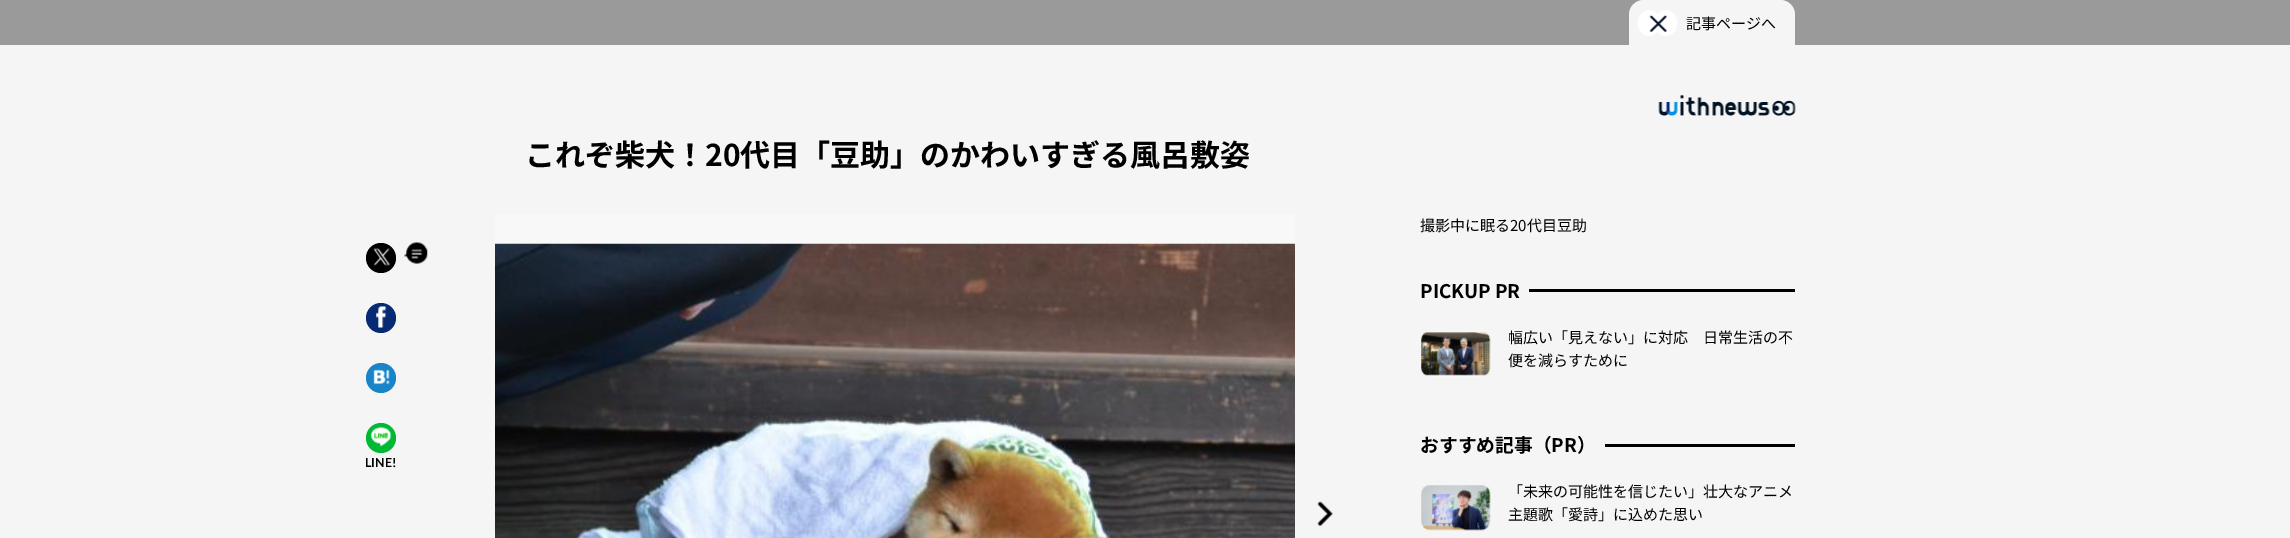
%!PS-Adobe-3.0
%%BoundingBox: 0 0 2290 538
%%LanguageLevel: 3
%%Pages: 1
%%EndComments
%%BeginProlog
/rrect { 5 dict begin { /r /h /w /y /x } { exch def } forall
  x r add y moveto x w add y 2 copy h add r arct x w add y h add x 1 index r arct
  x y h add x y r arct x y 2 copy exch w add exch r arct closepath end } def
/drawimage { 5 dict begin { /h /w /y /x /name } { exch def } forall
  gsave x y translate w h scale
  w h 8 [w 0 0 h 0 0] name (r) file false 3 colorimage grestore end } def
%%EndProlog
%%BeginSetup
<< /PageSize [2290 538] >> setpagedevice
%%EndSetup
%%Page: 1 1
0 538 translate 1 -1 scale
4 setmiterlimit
0.604 setgray
0 0 2290 538 rectfill
0.961 setgray
0 45 2290 493 rectfill
0 setgray
newpath 381 258 15 0 360 arc closepath fill
(images/1.raw) 373 248 18 18 drawimage
(images/2.raw) 404 242 24 22 drawimage
0.027 0.165 0.455 setrgbcolor
newpath 381 318 15 0 360 arc closepath fill
(images/3.raw) 376 306 11 22 drawimage
0.098 0.522 0.784 setrgbcolor
newpath 381 378 15 0 360 arc closepath fill
(images/4.raw) 373 369 17 16 drawimage
0 0.722 0.2 setrgbcolor
newpath 381 438 15 0 360 arc closepath fill
(images/5.raw) 371 427 21 20 drawimage
0.961 setgray
newpath 1644 0 moveto 1780 0 lineto 1788.5 0 1795 6.5 1795 15 curveto 1795 45 lineto 1629 45 lineto 1629 15 lineto 1629 6.5 1635.5 0 1644 0 curveto closepath fill
(images/6.raw) 1637 10 41 26 drawimage
(images/7.raw) 1658 95 138 21 drawimage
0.973 setgray
495 214 800 30 rectfill
(images/8.raw) 495 243 800 295 drawimage
(images/9.raw) 1317 501 16 25 drawimage
0 setgray
1529 289 266 3 rectfill
0.973 setgray
1420.5 330.5 70 47 9.5 rrect gsave fill grestore
0.961 setgray
stroke
(images/10.raw) 1421 332 70 44 drawimage
0 setgray
1605 444 190 3 rectfill
0.973 setgray
1420.5 484.5 70 46 9.5 rrect gsave fill grestore
0.961 setgray
stroke
(images/11.raw) 1421 485 70 46 drawimage
/Lato-Bold [12.5 0 0 -12.5 0 0] selectfont
0 setgray
365 467 moveto (LINE!) show
/NotoSansJP-Regular [15 0 0 -15 0 0] selectfont
1686 29 moveto (記事ページへ) show
/NotoSansJP-Bold [30 0 0 -30 0 0] selectfont
525 166 moveto (これぞ柴犬！20代目「豆助」のかわいすぎる風呂敷姿) show
/NotoSansJP-Regular [15 0 0 -15 0 0] selectfont
1420 231 moveto (撮影中に眠る20代目豆助) show
/NotoSansJP-Bold [18.75 0 0 -18.75 0 0] selectfont
1420 298 moveto (PICKUP PR) show
/NotoSansJP-Regular [15 0 0 -15 0 0] selectfont
1508 343 moveto (幅広い「見えない」に対応　日常生活の不) show
1508 366 moveto (便を減らすために) show
/NotoSansJP-Bold [18.75 0 0 -18.75 0 0] selectfont
1420 452 moveto (おすすめ記事（PR）) show
/NotoSansJP-Regular [15 0 0 -15 0 0] selectfont
1508 497 moveto (「未来の可能性を信じたい」壮大なアニメ) show
1508 520 moveto (主題歌「愛詩」に込めた思い) show
showpage
%%EOF
